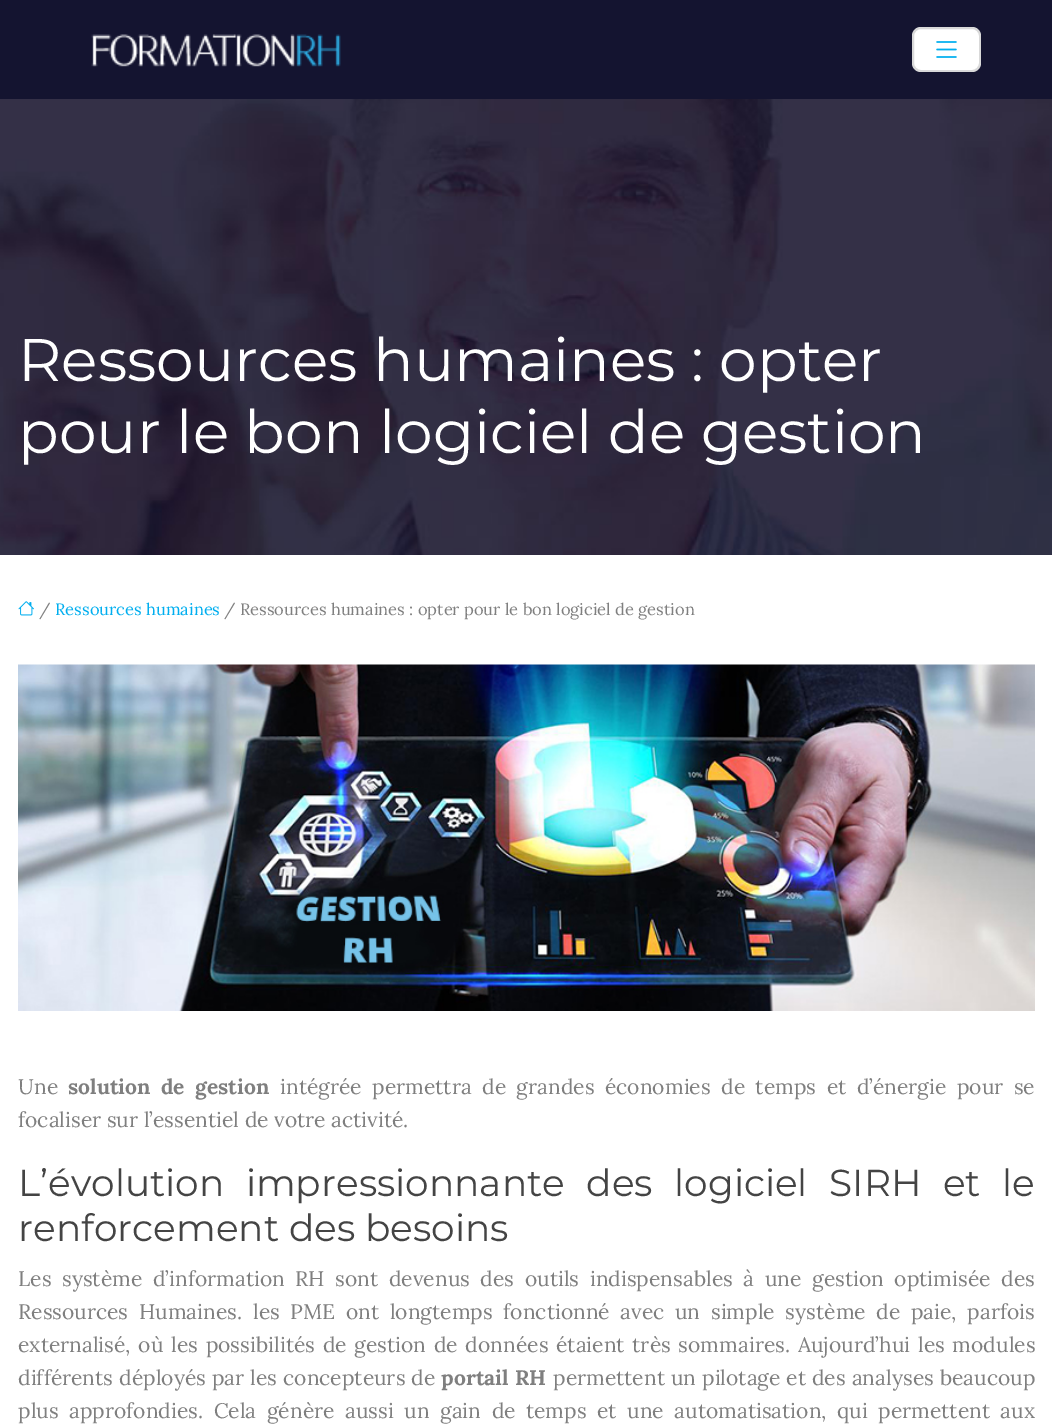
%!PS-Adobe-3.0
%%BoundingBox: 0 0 1052 1426
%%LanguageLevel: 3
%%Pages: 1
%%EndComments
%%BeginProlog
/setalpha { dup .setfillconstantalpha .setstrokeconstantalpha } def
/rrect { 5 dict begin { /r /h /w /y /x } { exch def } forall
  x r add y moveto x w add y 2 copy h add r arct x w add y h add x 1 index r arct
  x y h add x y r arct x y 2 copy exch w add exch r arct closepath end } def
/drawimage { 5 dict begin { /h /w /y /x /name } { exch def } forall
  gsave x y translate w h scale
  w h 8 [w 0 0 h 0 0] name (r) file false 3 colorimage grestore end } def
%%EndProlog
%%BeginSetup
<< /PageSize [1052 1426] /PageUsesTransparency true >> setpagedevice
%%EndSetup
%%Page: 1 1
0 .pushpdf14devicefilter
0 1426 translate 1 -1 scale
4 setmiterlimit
1 setgray
0 0 1052 1426 rectfill
0.078 0.078 0.188 setrgbcolor
0 0 1052 99 rectfill
(images/1.raw) 91 34 250 33 drawimage
1 setgray
912 27 69 45 9 rrect fill
0.15 setalpha
0 setgray
2 setlinewidth
913 28 67 43 8 rrect stroke
1 setalpha
(images/2.raw) 936 41 21 17 drawimage
(images/3.raw) 0 99 1052 456 drawimage
(images/4.raw) 18 601 16 15 drawimage
(images/5.raw) 18 664 1017 347 drawimage
/Montserrat-Regular [60 0 0 -60 0 0] selectfont
1 setgray
18 381 moveto (Ressources humaines : opter) show
18 453 moveto (pour le bon logiciel de gestion) show
/Lora-Regular [16.5 0 0 -16.5 0 0] selectfont
0.498 setgray
39 615 moveto (/) show
0 0.682 0.937 setrgbcolor
55 615 moveto (Ressources humaines) show
0.498 setgray
224 615 moveto (/ Ressources humaines : opter pour le bon logiciel de gestion) show
/Lora-Regular [21 0 0 -21 0 0] selectfont
18 1094 moveto (Une) show
/Lora-Bold [21 0 0 -21 0 0] selectfont
68 1094 moveto 5 0 32 (solution de gestion) widthshow
/Lora-Regular [21 0 0 -21 0 0] selectfont
280 1094 moveto 5 0 32 (intégrée permettra de grandes économies de temps et d’énergie pour se) widthshow
18 1127 moveto (focaliser sur l’essentiel de votre activité.) show
/Montserrat-Regular [37.5 0 0 -37.5 0 0] selectfont
0.267 setgray
18 1196 moveto 11.75 0 32 (L’évolution impressionnante des logiciel SIRH et le) widthshow
18 1241 moveto (renforcement des besoins) show
/Lora-Regular [21 0 0 -21 0 0] selectfont
0.498 setgray
18 1286 moveto 5.1 0 32 (Les système d’information RH sont devenus des outils indispensables à une gestion optimisée des) widthshow
18 1319 moveto 5.1 0 32 (Ressources Humaines. les PME ont longtemps fonctionné avec un simple système de paie, parfois) widthshow
18 1352 moveto 2.25 0 32 (externalisé, où les possibilités de gestion de données étaient très sommaires. Aujourd’hui les modules) widthshow
18 1385 moveto 0.5 0 32 (différents déployés par les concepteurs de) widthshow
/Lora-Bold [21 0 0 -21 0 0] selectfont
441 1385 moveto 0.5 0 32 (portail RH) widthshow
/Lora-Regular [21 0 0 -21 0 0] selectfont
553 1385 moveto 0.5 0 32 (permettent un pilotage et des analyses beaucoup) widthshow
18 1418 moveto 5 0 32 (plus approfondies. Cela génère aussi un gain de temps et une automatisation, qui permettent aux) widthshow
.poppdf14devicefilter showpage
%%EOF
